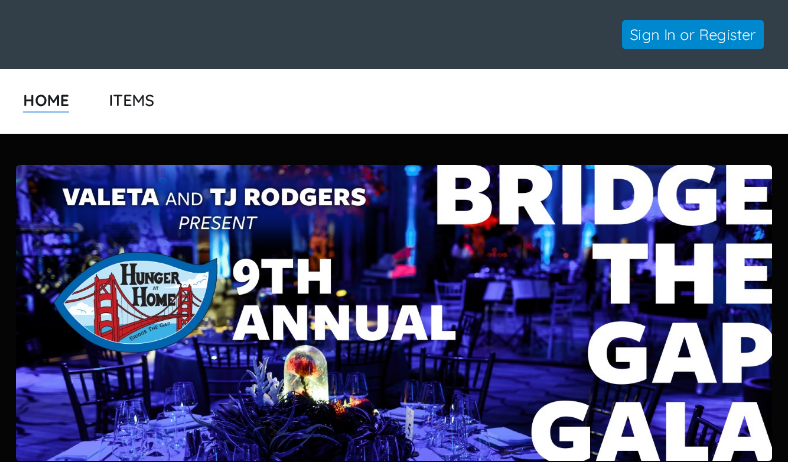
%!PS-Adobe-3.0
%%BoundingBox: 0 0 788 462
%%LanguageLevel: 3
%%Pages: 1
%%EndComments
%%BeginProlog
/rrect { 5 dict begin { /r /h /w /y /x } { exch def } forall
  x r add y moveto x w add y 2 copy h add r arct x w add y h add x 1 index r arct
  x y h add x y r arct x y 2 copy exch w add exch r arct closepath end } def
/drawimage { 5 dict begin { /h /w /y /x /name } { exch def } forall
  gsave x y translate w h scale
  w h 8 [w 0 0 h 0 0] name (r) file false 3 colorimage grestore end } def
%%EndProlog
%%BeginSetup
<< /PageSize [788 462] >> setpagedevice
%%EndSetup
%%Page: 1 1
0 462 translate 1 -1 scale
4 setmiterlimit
0.02 setgray
0 0 788 462 rectfill
0.2 0.247 0.282 setrgbcolor
0 0 788 69 rectfill
0 0.533 0.808 setrgbcolor
622 20 142 29 4 rrect fill
1 setgray
0 69 788 64 rectfill
0.953 setgray
0 133 788 1 rectfill
0.624 0.78 0.941 setrgbcolor
23 111 46 2 rectfill
(images/1.raw) 16 165 756 296 drawimage
/Quicksand-Regular [15 0 0 -15 0 0] selectfont
1 setgray
630 40 moveto (Sign In or Register) show
/Quicksand-Bold [16 0 0 -16 0 0] selectfont
0.106 0.118 0.129 setrgbcolor
23 106 moveto (HOME) show
/Quicksand-Medium [16 0 0 -16 0 0] selectfont
109 106 moveto (ITEMS) show
showpage
%%EOF
